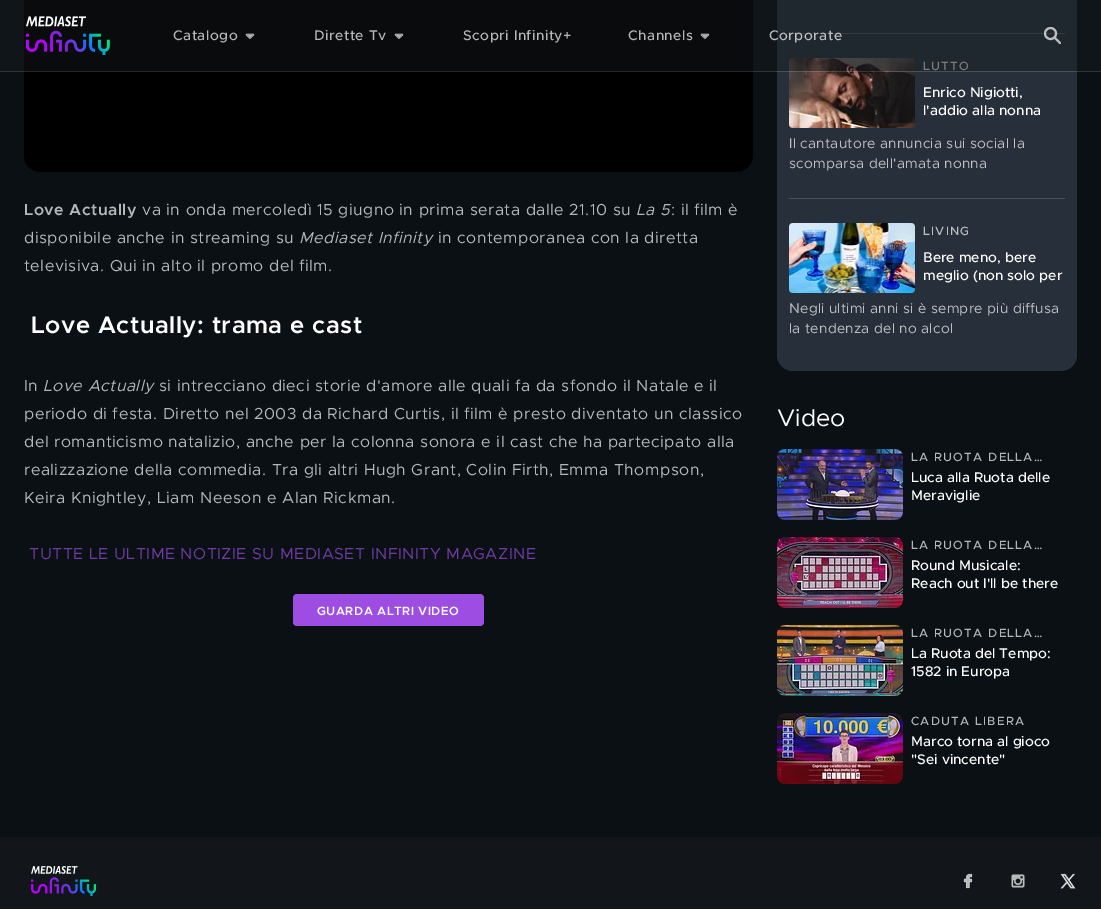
%!PS-Adobe-3.0
%%BoundingBox: 0 0 1101 909
%%LanguageLevel: 3
%%Pages: 1
%%EndComments
%%BeginProlog
/setalpha { dup .setfillconstantalpha .setstrokeconstantalpha } def
/rrect { 5 dict begin { /r /h /w /y /x } { exch def } forall
  x r add y moveto x w add y 2 copy h add r arct x w add y h add x 1 index r arct
  x y h add x y r arct x y 2 copy exch w add exch r arct closepath end } def
/drawimage { 5 dict begin { /h /w /y /x /name } { exch def } forall
  gsave x y translate w h scale
  w h 8 [w 0 0 h 0 0] name (r) file false 3 colorimage grestore end } def
%%EndProlog
%%BeginSetup
<< /PageSize [1101 909] /PageUsesTransparency true >> setpagedevice
%%EndSetup
%%Page: 1 1
0 .pushpdf14devicefilter
0 909 translate 1 -1 scale
4 setmiterlimit
0.039 0.063 0.078 setrgbcolor
0 0 1101 909 rectfill
(images/3.raw) 24 0 729 172 drawimage
0.153 0.188 0.227 setrgbcolor
777 -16 300 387 16 rrect fill
(images/4.raw) 789 58 126 70 drawimage
0.15 setalpha
1 setgray
0 71 1101 1 rectfill
1 setalpha
0.616 0.302 0.882 setrgbcolor
293 594 191 32 4 rrect fill
0.278 0.31 0.345 setrgbcolor
789 33 276 1 rectfill
789 198 276 1 rectfill
(images/5.raw) 789 223 126 70 drawimage
(images/6.raw) 777 449 126 71 drawimage
(images/7.raw) 777 537 126 71 drawimage
(images/8.raw) 777 625 126 71 drawimage
(images/9.raw) 777 713 126 71 drawimage
0.071 0.086 0.102 setrgbcolor
0 837 1101 72 rectfill
(images/10.raw) 31 866 66 30 drawimage
(images/11.raw) 963 873 10 16 drawimage
(images/12.raw) 1011 874 14 14 drawimage
(images/13.raw) 1060 873 16 16 drawimage
/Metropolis-SemiBold [16 0 0 -16 0 0] selectfont
0.714 0.718 0.725 setrgbcolor
24 215 moveto 0.5 0 (Love Actually) ashow
/Metropolis-Regular [16 0 0 -16 0 0] selectfont
142 215 moveto 0.5 0 (va in onda mercoledì 15 giugno in prima serata dalle 21.10 su) ashow
/Metropolis-Italic [16 0 0 -16 0 0] selectfont
636 215 moveto 0.5 0 (La 5) ashow
/Metropolis-Regular [16 0 0 -16 0 0] selectfont
671 215 moveto 0.5 0 (: il film è) ashow
24 243 moveto 0.5 0 (disponibile anche in streaming su) ashow
/Metropolis-Italic [16 0 0 -16 0 0] selectfont
299 243 moveto 0.5 0 (Mediaset Infinity) ashow
/Metropolis-Regular [16 0 0 -16 0 0] selectfont
438 243 moveto 0.5 0 (in contemporanea con la diretta) ashow
24 271 moveto 0.5 0 (televisiva. Qui in alto il promo del film.) ashow
/Metropolis-SemiBold [24 0 0 -24 0 0] selectfont
1 setgray
31 333 moveto 0.5 0 (Love Actually: trama e cast) ashow
/Metropolis-Regular [16 0 0 -16 0 0] selectfont
0.714 0.718 0.725 setrgbcolor
24 391 moveto 0.5 0 (In) ashow
/Metropolis-Italic [16 0 0 -16 0 0] selectfont
43 391 moveto 0.5 0 (Love Actually) ashow
/Metropolis-Regular [16 0 0 -16 0 0] selectfont
159 391 moveto 0.5 0 (si intrecciano dieci storie d'amore alle quali fa da sfondo il Natale e il) ashow
24 419 moveto 0.5 0 (periodo di festa. Diretto nel 2003 da Richard Curtis, il film è presto diventato un classico) ashow
24 447 moveto 0.5 0 (del romanticismo natalizio, anche per la colonna sonora e il cast che ha partecipato alla) ashow
24 475 moveto 0.5 0 (realizzazione della commedia. Tra gli altri Hugh Grant, Colin Firth, Emma Thompson,) ashow
24 503 moveto 0.5 0 (Keira Knightley, Liam Neeson e Alan Rickman.) ashow
0.443 0.231 0.643 setrgbcolor
29 559 moveto 0.5 0 (TUTTE LE ULTIME NOTIZIE SU MEDIASET INFINITY MAGAZINE) ashow
/Metropolis-SemiBold [12 0 0 -12 0 0] selectfont
1 setgray
317 615 moveto 0.5 0 (GUARDA ALTRI VIDEO) ashow
/Metropolis-Medium [12 0 0 -12 0 0] selectfont
0.745 0.757 0.769 setrgbcolor
923 70 moveto 1.25 0 (LUTTO) ashow
0.4 setalpha
0.086 0.11 0.122 setrgbcolor
0 0 1101 71 rectfill
0.7 setalpha
1 setgray
2 setlinewidth
newpath 1050.5 33.5 5.5 0 360 arc closepath stroke
1 setalpha
0.737 0.749 0.757 setrgbcolor
1 setlinecap
1 setlinejoin
newpath 1054.5 37.5 moveto 1060 43 lineto stroke
/Metropolis-Medium [14 0 0 -14 0 0] selectfont
0.745 0.757 0.769 setrgbcolor
769 40 moveto 0.5 0 (Corporate) ashow
0.714 0.718 0.725 setrgbcolor
628 40 moveto 0.5 0 (Channels) ashow
(images/2.raw) 700 33 10 6 drawimage
463 40 moveto 0.5 0 (Scopri Infinity+) ashow
314 40 moveto 0.5 0 (Dirette Tv) ashow
(images/2.raw) 394 33 10 6 drawimage
173 40 moveto 0.5 0 (Catalogo) ashow
(images/2.raw) 245 33 10 6 drawimage
(images/1.raw) 25 16 85 39 drawimage
1 setgray
923 97 moveto (Enrico Nigiotti,) show
923 115 moveto (l'addio alla nonna) show
/Metropolis-Regular [14 0 0 -14 0 0] selectfont
0.745 0.757 0.769 setrgbcolor
789 148 moveto 0.25 0 (Il cantautore annuncia sui social la) ashow
789 168 moveto 0.25 0 (scomparsa dell'amata nonna) ashow
/Metropolis-Medium [12 0 0 -12 0 0] selectfont
923 235 moveto 1.25 0 (LIVING) ashow
/Metropolis-Medium [14 0 0 -14 0 0] selectfont
1 setgray
923 262 moveto (Bere meno, bere) show
923 280 moveto (meglio \(non solo per) show
/Metropolis-Regular [14 0 0 -14 0 0] selectfont
0.745 0.757 0.769 setrgbcolor
789 313 moveto 0.25 0 (Negli ultimi anni si è sempre più diffusa) ashow
789 333 moveto 0.25 0 (la tendenza del no alcol) ashow
/Metropolis-Regular [24 0 0 -24 0 0] selectfont
1 setgray
777 426 moveto (Video) show
/Metropolis-Medium [12 0 0 -12 0 0] selectfont
0.714 0.718 0.725 setrgbcolor
911 461 moveto 1.25 0 (LA RUOTA DELLA…) ashow
/Metropolis-Medium [14 0 0 -14 0 0] selectfont
1 setgray
911 482 moveto (Luca alla Ruota delle) show
911 500 moveto (Meraviglie) show
/Metropolis-Medium [12 0 0 -12 0 0] selectfont
0.714 0.718 0.725 setrgbcolor
911 549 moveto 1.25 0 (LA RUOTA DELLA…) ashow
/Metropolis-Medium [14 0 0 -14 0 0] selectfont
1 setgray
911 570 moveto (Round Musicale:) show
911 588 moveto (Reach out I'll be there) show
/Metropolis-Medium [12 0 0 -12 0 0] selectfont
0.714 0.718 0.725 setrgbcolor
911 637 moveto 1.25 0 (LA RUOTA DELLA…) ashow
/Metropolis-Medium [14 0 0 -14 0 0] selectfont
1 setgray
911 658 moveto (La Ruota del Tempo:) show
911 676 moveto (1582 in Europa) show
/Metropolis-Medium [12 0 0 -12 0 0] selectfont
0.714 0.718 0.725 setrgbcolor
911 725 moveto 1.25 0 (CADUTA LIBERA) ashow
/Metropolis-Medium [14 0 0 -14 0 0] selectfont
1 setgray
911 746 moveto (Marco torna al gioco) show
911 764 moveto ("Sei vincente") show
.poppdf14devicefilter showpage
%%EOF
